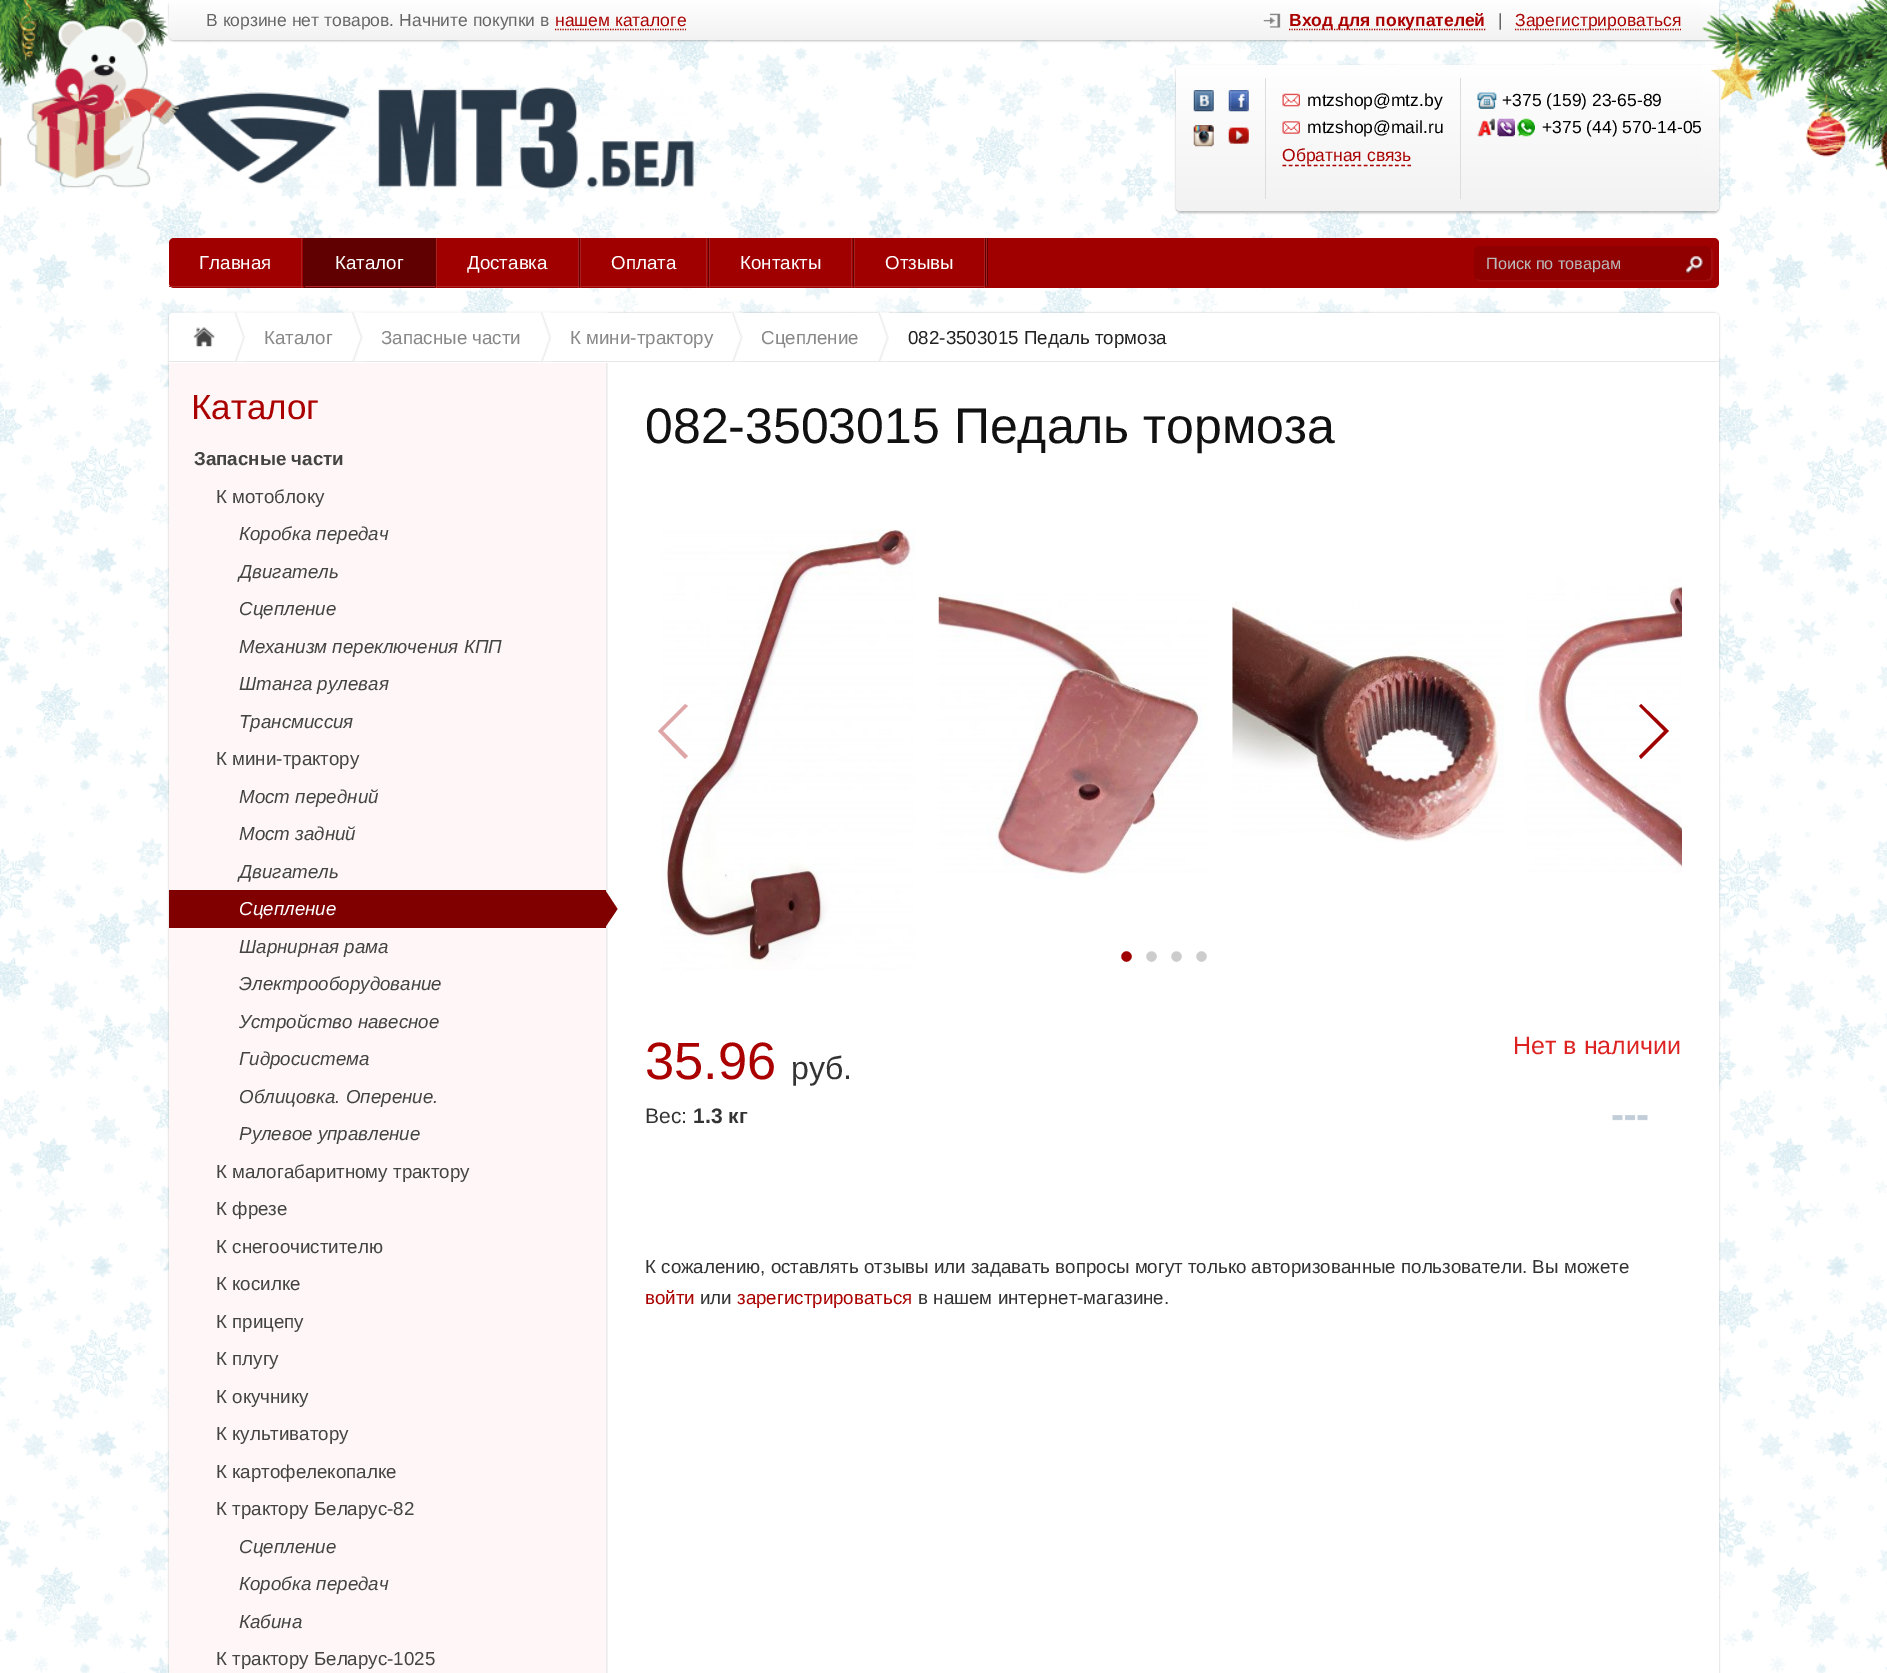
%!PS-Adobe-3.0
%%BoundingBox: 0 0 1887 1673
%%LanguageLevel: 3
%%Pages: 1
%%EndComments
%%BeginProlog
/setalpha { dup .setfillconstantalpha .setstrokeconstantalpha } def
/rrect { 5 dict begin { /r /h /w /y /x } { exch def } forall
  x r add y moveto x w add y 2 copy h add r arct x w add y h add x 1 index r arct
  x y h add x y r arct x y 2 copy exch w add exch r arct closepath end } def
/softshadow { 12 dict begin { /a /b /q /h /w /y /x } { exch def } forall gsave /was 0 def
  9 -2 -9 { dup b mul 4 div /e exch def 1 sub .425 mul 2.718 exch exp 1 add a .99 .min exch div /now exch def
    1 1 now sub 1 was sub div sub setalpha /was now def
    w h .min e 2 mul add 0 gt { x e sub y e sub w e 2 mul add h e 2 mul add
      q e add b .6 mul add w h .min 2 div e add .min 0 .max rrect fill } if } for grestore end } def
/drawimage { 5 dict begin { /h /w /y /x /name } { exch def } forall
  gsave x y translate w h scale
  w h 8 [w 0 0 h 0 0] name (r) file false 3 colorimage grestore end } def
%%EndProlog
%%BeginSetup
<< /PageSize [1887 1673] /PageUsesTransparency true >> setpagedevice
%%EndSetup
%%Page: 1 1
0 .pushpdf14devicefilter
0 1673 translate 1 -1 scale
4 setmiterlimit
1 setgray
0 0 1887 1673 rectfill
(images/1.raw) 0 0 1887 1673 drawimage
0 setgray
169 1 1550 40 5 1 0.25 softshadow
(images/2.raw) 0 0 168 88 drawimage
gsave newpath 169 0 moveto 1719 0 lineto 1719 35 lineto 1719 38 1717 40 1714 40 curveto 174 40 lineto 171 40 169 38 169 35 curveto closepath clip newpath
<< /ShadingType 2 /ColorSpace /DeviceRGB /Coords [169 0 169 40] /Extend [true true] /Function << /FunctionType 2 /Domain [0 1] /C0 [1 1 1] /C1 [0.949 0.949 0.949] /N 1 >> >> shfill grestore
(images/9.raw) 171 87 523 102 drawimage
(images/3.raw) 0 17 180 171 drawimage
1176 66 543 147 5 1 0.25 softshadow
gsave 1176 65 543 146 5 rrect clip newpath
<< /ShadingType 2 /ColorSpace /DeviceRGB /Coords [1448 65 1448 211] /Extend [true true] /Function << /FunctionType 2 /Domain [0 1] /C0 [1 1 1] /C1 [0.949 0.949 0.949] /N 1 >> >> shfill grestore
(images/4.raw) 1702 0 185 171 drawimage
(images/5.raw) 1711 32 52 68 drawimage
(images/6.raw) 1806 94 41 63 drawimage
(images/7.raw) 1881 131 6 39 drawimage
0.667 0 0 setrgbcolor
1.2 setlinewidth
[1.25 1.25] 0 setdash
newpath 555 29.5 moveto 686 29.5 lineto stroke
(images/8.raw) 1263 13 18 15 drawimage
newpath 1289 29.5 moveto 1486 29.5 lineto stroke
newpath 1515 29.5 moveto 1681 29.5 lineto stroke
0.867 setgray
1265 78 1 121 rectfill
(images/10.raw) 1193 90 21 22 drawimage
(images/11.raw) 1228 90 21 22 drawimage
(images/12.raw) 1193 125 21 22 drawimage
(images/13.raw) 1228 127 21 17 drawimage
1460 78 1 121 rectfill
(images/14.raw) 1282 93 18 14 drawimage
(images/15.raw) 1282 121 18 13 drawimage
0.667 0 0 setrgbcolor
[3.75 2.5] 0 setdash
newpath 1282.5 165.5 moveto 1411 165.5 lineto stroke
(images/16.raw) 1477 92 20 17 drawimage
(images/17.raw) 1477 118 58 19 drawimage
0.627 0 0 setrgbcolor
169 238 1550 50 5 rrect fill
0.659 0.129 0.129 setrgbcolor
301 238 1 50 rectfill
0.671 0.145 0.145 setrgbcolor
169 286 134 1 rectfill
0.376 0 0 setrgbcolor
303 238 1 48 rectfill
305 238 130 50 rectfill
0.671 0.145 0.145 setrgbcolor
304 286 131 1 rectfill
0.376 0 0 setrgbcolor
304 238 1 50 rectfill
435 238 1 48 rectfill
0.659 0.129 0.129 setrgbcolor
578 238 1 50 rectfill
0.671 0.145 0.145 setrgbcolor
436 286 143 1 rectfill
0.659 0.129 0.129 setrgbcolor
436 238 1 50 rectfill
0.376 0 0 setrgbcolor
579 238 1 48 rectfill
0.659 0.129 0.129 setrgbcolor
706 238 1 50 rectfill
0.671 0.145 0.145 setrgbcolor
580 286 128 1 rectfill
0.659 0.129 0.129 setrgbcolor
580 238 1 50 rectfill
0.376 0 0 setrgbcolor
708 238 1 48 rectfill
0.659 0.129 0.129 setrgbcolor
851 238 1 50 rectfill
0.671 0.145 0.145 setrgbcolor
709 286 144 1 rectfill
0.659 0.129 0.129 setrgbcolor
709 238 1 50 rectfill
0.376 0 0 setrgbcolor
853 238 1 48 rectfill
0.659 0.129 0.129 setrgbcolor
984 238 1 50 rectfill
0.671 0.145 0.145 setrgbcolor
854 286 131 1 rectfill
0.659 0.129 0.129 setrgbcolor
854 238 1 50 rectfill
0.376 0 0 setrgbcolor
985 238 3 48 rectfill
0.659 0.129 0.129 setrgbcolor
986 238 1 48 rectfill
gsave
newpath 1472 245 moveto 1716 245 lineto 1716 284 lineto 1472 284 lineto closepath 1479 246 moveto 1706 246 lineto 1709 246 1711 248 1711 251 curveto 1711 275 lineto 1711 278 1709 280 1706 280 curveto 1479 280 lineto 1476 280 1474 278 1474 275 curveto 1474 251 lineto 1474 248 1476 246 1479 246 curveto closepath eoclip newpath
1 setgray
1475 248 238 33 5 0.5 0.05 softshadow
grestore
0.1 setalpha
0 setgray
1474 246 237 34 5 rrect fill
1 setalpha
(images/18.raw) 1685 256 19 19 drawimage
169 313 1550 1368 5 1 0.25 softshadow
1 setgray
169 313 1550 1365 5 rrect fill
(images/19.raw) 169 312 439 1361 drawimage
newpath 174 313 moveto 1714 313 lineto 1717 313 1719 315 1719 318 curveto 1719 363 lineto 169 363 lineto 169 318 lineto 169 315 171 313 174 313 curveto closepath fill
0.902 setgray
169 361 1550 1 rectfill
(images/20.raw) 193 327 22 20 drawimage
(images/21.raw) 234 312 11 50 drawimage
(images/22.raw) 351 312 12 50 drawimage
(images/23.raw) 540 312 11 50 drawimage
(images/24.raw) 731 312 12 50 drawimage
(images/25.raw) 878 312 11 50 drawimage
1 0.969 0.969 setrgbcolor
169 363 437 1310 rectfill
0.502 0 0 setrgbcolor
169 890 437 38 rectfill
newpath 605 927.5 moveto 605 890 lineto 617.5 909 lineto closepath fill
(images/26.raw) 661 529 254 441 drawimage
(images/27.raw) 938 594 269 285 drawimage
(images/28.raw) 1232 601 272 241 drawimage
(images/29.raw) 1525 578 157 295 drawimage
0.871 0.651 0.651 setrgbcolor
newpath 658 731 moveto 685 704 lineto 688 706 lineto 663 731 lineto 688 756 lineto 685 759 lineto closepath fill
0.627 0 0 setrgbcolor
newpath 1669 731 moveto 1641 759 lineto 1639 756 lineto 1664 731 lineto 1639 706 lineto 1641 704 lineto closepath fill
newpath 1126.5 956.5 7 0 360 arc closepath gsave fill grestore
1 setgray
3 setlinewidth
[] 0 setdash
stroke
0.8 setgray
newpath 1151.5 956.5 7 0 360 arc closepath gsave fill grestore
1 setgray
stroke
0.8 setgray
newpath 1176.5 956.5 7 0 360 arc closepath gsave fill grestore
1 setgray
stroke
0.8 setgray
newpath 1201.5 956.5 7 0 360 arc closepath gsave fill grestore
1 setgray
stroke
(images/30.raw) 1612 1115 36 6 drawimage
/LiberationSans-Regular [17.5 0 0 -17.5 0 0] selectfont
0.4 setgray
206 26 moveto (В корзине нет товаров. Начните покупки в) show
0.667 0 0 setrgbcolor
555 26 moveto (нашем каталоге) show
/LiberationSans-Bold [17.5 0 0 -17.5 0 0] selectfont
1289 26 moveto (Вход для покупателей) show
/LiberationSans-Regular [17.5 0 0 -17.5 0 0] selectfont
0.4 setgray
1498 26 moveto (|) show
0.667 0 0 setrgbcolor
1515 26 moveto (Зарегистрироваться) show
0 setgray
1307 106 moveto (mtzshop@mtz.by) show
1307 133 moveto (mtzshop@mail.ru) show
0.667 0 0 setrgbcolor
1282 161 moveto (Обратная связь) show
0 setgray
1502 106 moveto (+375 \(159\) 23-65-89) show
1542 133 moveto (+375 \(44\) 570-14-05) show
/LiberationSans-Regular [18.75 0 0 -18.75 0 0] selectfont
1 setgray
199 269 moveto (Главная) show
335 269 moveto (Каталог) show
467 269 moveto (Доставка) show
611 269 moveto (Оплата) show
740 269 moveto (Контакты) show
885 269 moveto (Отзывы) show
/LiberationSans-Regular [16.25 0 0 -16.25 0 0] selectfont
0.733 setgray
1486 269 moveto (Поиск по товарам) show
/LiberationSans-Regular [18.75 0 0 -18.75 0 0] selectfont
0.533 setgray
264 344 moveto (Каталог) show
381 344 moveto (Запасные части) show
570 344 moveto (К мини-трактору) show
761 344 moveto (Сцепление) show
0.133 setgray
908 344 moveto (082-3503015 Педаль тормоза) show
/LiberationSans-Regular [35 0 0 -35 0 0] selectfont
0.667 0 0 setrgbcolor
191 419 moveto (Каталог) show
/LiberationSans-Bold [18.75 0 0 -18.75 0 0] selectfont
0.267 setgray
194 465 moveto (Запасные части) show
/LiberationSans-Regular [18.75 0 0 -18.75 0 0] selectfont
216 503 moveto (К мотоблоку) show
/LiberationSans-Italic [18.75 0 0 -18.75 0 0] selectfont
239 540 moveto (Коробка передач) show
239 578 moveto (Двигатель) show
239 615 moveto (Сцепление) show
239 653 moveto (Механизм переключения КПП) show
239 690 moveto (Штанга рулевая) show
239 728 moveto (Трансмиссия) show
/LiberationSans-Regular [18.75 0 0 -18.75 0 0] selectfont
216 765 moveto (К мини-трактору) show
/LiberationSans-Italic [18.75 0 0 -18.75 0 0] selectfont
239 803 moveto (Мост передний) show
239 840 moveto (Мост задний) show
239 878 moveto (Двигатель) show
1 setgray
239 915 moveto (Сцепление) show
0.267 setgray
239 953 moveto (Шарнирная рама) show
239 990 moveto (Электрооборудование) show
239 1028 moveto (Устройство навесное) show
239 1065 moveto (Гидросистема) show
239 1103 moveto (Облицовка. Оперение.) show
239 1140 moveto (Рулевое управление) show
/LiberationSans-Regular [18.75 0 0 -18.75 0 0] selectfont
216 1178 moveto (К малогабаритному трактору) show
216 1215 moveto (К фрезе) show
216 1253 moveto (К снегоочистителю) show
216 1290 moveto (К косилке) show
216 1328 moveto (К прицепу) show
216 1365 moveto (К плугу) show
216 1403 moveto (К окучнику) show
216 1440 moveto (К культиватору) show
216 1478 moveto (К картофелекопалке) show
216 1515 moveto (К трактору Беларус-82) show
/LiberationSans-Italic [18.75 0 0 -18.75 0 0] selectfont
239 1553 moveto (Сцепление) show
239 1590 moveto (Коробка передач) show
239 1628 moveto (Кабина) show
/LiberationSans-Regular [18.75 0 0 -18.75 0 0] selectfont
216 1665 moveto (К трактору Беларус-1025) show
/LiberationSans-Regular [50 0 0 -50 0 0] selectfont
0.067 setgray
645 443 moveto (082-3503015 Педаль тормоза) show
/LiberationSans-Regular [52.5 0 0 -52.5 0 0] selectfont
0.667 0 0 setrgbcolor
645 1079 moveto (35.96) show
/LiberationSans-Regular [32 0 0 -32 0 0] selectfont
0.2 setgray
791 1079 moveto (руб.) show
/LiberationSans-Regular [21 0 0 -21 0 0] selectfont
645 1123 moveto (Вес:) show
/LiberationSans-Bold [21 0 0 -21 0 0] selectfont
693 1123 moveto (1.3 кг) show
/LiberationSans-Regular [25 0 0 -25 0 0] selectfont
0.867 0.133 0.133 setrgbcolor
1513 1054 moveto (Нет в наличии) show
/LiberationSans-Regular [18.75 0 0 -18.75 0 0] selectfont
0.2 setgray
645 1273 moveto (К сожалению, оставлять отзывы или задавать вопросы могут только авторизованные пользователи. Вы можете) show
0.667 0 0 setrgbcolor
645 1304 moveto (войти) show
0.2 setgray
700 1304 moveto (или) show
0.667 0 0 setrgbcolor
737 1304 moveto (зарегистрироваться) show
0.2 setgray
918 1304 moveto (в нашем интернет-магазине.) show
.poppdf14devicefilter showpage
%%EOF
